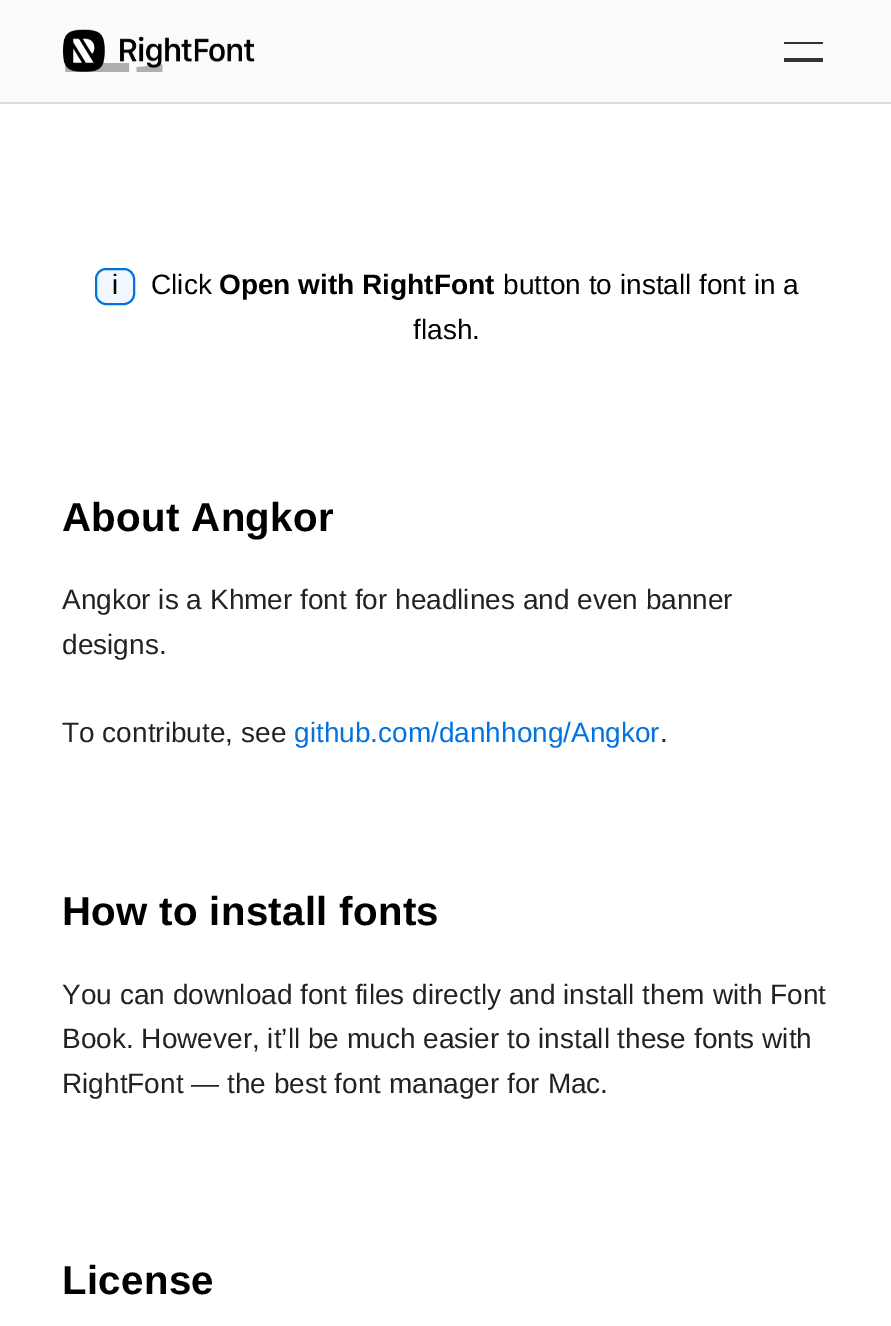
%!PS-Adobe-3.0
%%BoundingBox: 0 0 891 1326
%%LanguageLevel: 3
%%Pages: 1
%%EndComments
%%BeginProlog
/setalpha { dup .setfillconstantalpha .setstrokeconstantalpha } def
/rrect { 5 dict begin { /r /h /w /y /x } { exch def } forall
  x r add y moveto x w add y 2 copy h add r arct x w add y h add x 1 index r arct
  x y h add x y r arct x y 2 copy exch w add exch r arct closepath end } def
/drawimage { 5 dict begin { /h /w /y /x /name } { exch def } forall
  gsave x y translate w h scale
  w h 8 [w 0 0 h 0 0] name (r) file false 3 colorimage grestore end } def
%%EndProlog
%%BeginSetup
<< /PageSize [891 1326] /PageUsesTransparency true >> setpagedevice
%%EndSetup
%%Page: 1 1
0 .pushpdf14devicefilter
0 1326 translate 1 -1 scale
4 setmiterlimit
1 setgray
0 0 891 1326 rectfill
0.7 setalpha
0.98 setgray
0 0 891 102 rectfill
1 setalpha
0.859 setgray
0 102 891 2 rectfill
(images/1.raw) 63 29 192 43 drawimage
0.2 setgray
784 42 39 2 rectfill
784 58 39 4 rectfill
0.941 0.969 1 setrgbcolor
96 269 38 35 10 rrect gsave fill grestore
0.012 0.447 0.882 setrgbcolor
2 setlinewidth
stroke
/LiberationSans-Regular [28 0 0 -28 0 0] selectfont
0 setgray
112 294 moveto (i) show
151 294 moveto (Click) show
/LiberationSans-Bold [28 0 0 -28 0 0] selectfont
219 294 moveto (Open with RightFont) show
/LiberationSans-Regular [28 0 0 -28 0 0] selectfont
503 294 moveto (button to install font in a) show
413 339 moveto (flash.) show
/LiberationSans-Bold [40.25 0 0 -40.25 0 0] selectfont
62 531 moveto 0.3 0 (About Angkor) ashow
/LiberationSans-Regular [28 0 0 -28 0 0] selectfont
0.133 setgray
62 609 moveto (Angkor is a Khmer font for headlines and even banner) show
62 654 moveto (designs.) show
62 742 moveto (To contribute, see) show
0.012 0.447 0.882 setrgbcolor
294 742 moveto (github.com/danhhong/Angkor) show
0.133 setgray
660 742 moveto (.) show
/LiberationSans-Bold [40.25 0 0 -40.25 0 0] selectfont
0 setgray
62 925 moveto 0.3 0 (How to install fonts) ashow
/LiberationSans-Regular [28 0 0 -28 0 0] selectfont
0.133 setgray
62 1004 moveto (You can download font files directly and install them with Font) show
62 1048 moveto (Book. However, it’ll be much easier to install these fonts with) show
62 1093 moveto (RightFont — the best font manager for Mac.) show
/LiberationSans-Bold [40.25 0 0 -40.25 0 0] selectfont
0 setgray
62 1294 moveto 0.3 0 (License) ashow
.poppdf14devicefilter showpage
%%EOF
